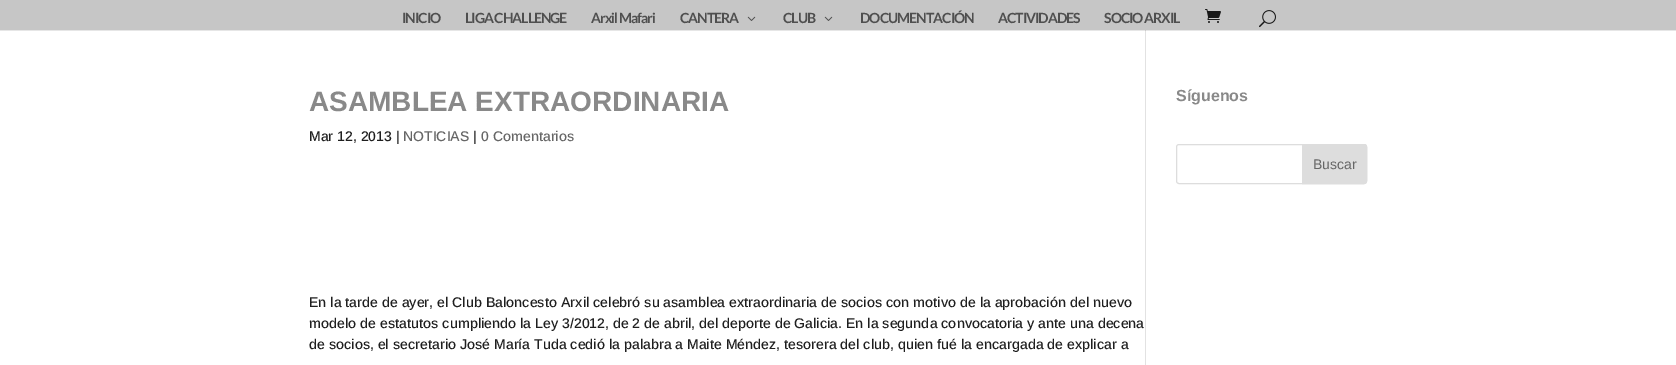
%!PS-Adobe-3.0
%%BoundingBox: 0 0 1676 365
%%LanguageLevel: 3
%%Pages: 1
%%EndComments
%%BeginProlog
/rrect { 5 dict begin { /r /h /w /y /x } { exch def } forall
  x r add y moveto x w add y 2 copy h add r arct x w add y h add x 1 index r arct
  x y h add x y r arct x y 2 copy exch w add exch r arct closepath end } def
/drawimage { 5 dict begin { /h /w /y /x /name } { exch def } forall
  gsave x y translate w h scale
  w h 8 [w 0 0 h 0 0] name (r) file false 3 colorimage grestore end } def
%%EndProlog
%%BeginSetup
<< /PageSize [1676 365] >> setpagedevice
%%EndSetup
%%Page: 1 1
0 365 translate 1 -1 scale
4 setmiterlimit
1 setgray
0 0 1676 365 rectfill
0.902 setgray
0 30 1676 1 rectfill
0.776 setgray
0 0 1676 30 rectfill
(images/1.raw) 747 16 9 5 drawimage
(images/1.raw) 824 16 9 5 drawimage
(images/2.raw) 1205 9 16 14 drawimage
(images/3.raw) 1259 10 17 18 drawimage
0.886 setgray
1145 30 1 335 rectfill
0.796 setgray
1145 30 1 1 rectfill
0.867 setgray
1176.5 144.5 190 39 2.5 rrect stroke
newpath 1302.5 144.5 moveto 1364 144.5 lineto 1365.5 144.5 1366.5 145.5 1366.5 147 curveto 1366.5 181 lineto 1366.5 182.5 1365.5 183.5 1364 183.5 curveto 1302.5 183.5 lineto closepath gsave fill grestore
stroke
/Lato-Bold [14 0 0 -14 0 0] selectfont
0.31 setgray
402 23 moveto -1 0 (INICIO) ashow
465 23 moveto -1 0 (LIGA CHALLENGE) ashow
591 23 moveto -1 0 (Arxil Mafari) ashow
680 23 moveto -1 0 (CANTERA) ashow
783 23 moveto -1 0 (CLUB) ashow
860 23 moveto -1 0 (DOCUMENTACIÓN) ashow
998 23 moveto -1 0 (ACTIVIDADES) ashow
1104 23 moveto -1 0 (SOCIO ARXIL) ashow
/Arimo-Bold [28 0 0 -28 0 0] selectfont
0.537 setgray
309 111 moveto (ASAMBLEA EXTRAORDINARIA) show
/Arimo-Medium [14 0 0 -14 0 0] selectfont
0.122 setgray
309 141 moveto (Mar 12, 2013 |) show
0.4 setgray
403 141 moveto (NOTICIAS) show
0.122 setgray
473 141 moveto (|) show
0.4 setgray
481 141 moveto (0 Comentarios) show
0.122 setgray
309 307 moveto (En la tarde de ayer, el Club Baloncesto Arxil celebró su asamblea extraordinaria de socios con motivo de la aprobación del nuevo) show
309 328 moveto (modelo de estatutos cumpliendo la Ley 3/2012, de 2 de abril, del deporte de Galicia. En la segunda convocatoria y ante una decena) show
309 349 moveto (de socios, el secretario José María Tuda cedió la palabra a Maite Méndez, tesorera del club, quien fué la encargada de explicar a) show
/Arimo-Bold [16 0 0 -16 0 0] selectfont
0.537 setgray
1176 101 moveto (Síguenos) show
/Arimo-Regular [14 0 0 -14 0 0] selectfont
0.4 setgray
1313 169 moveto (Buscar) show
showpage
%%EOF
